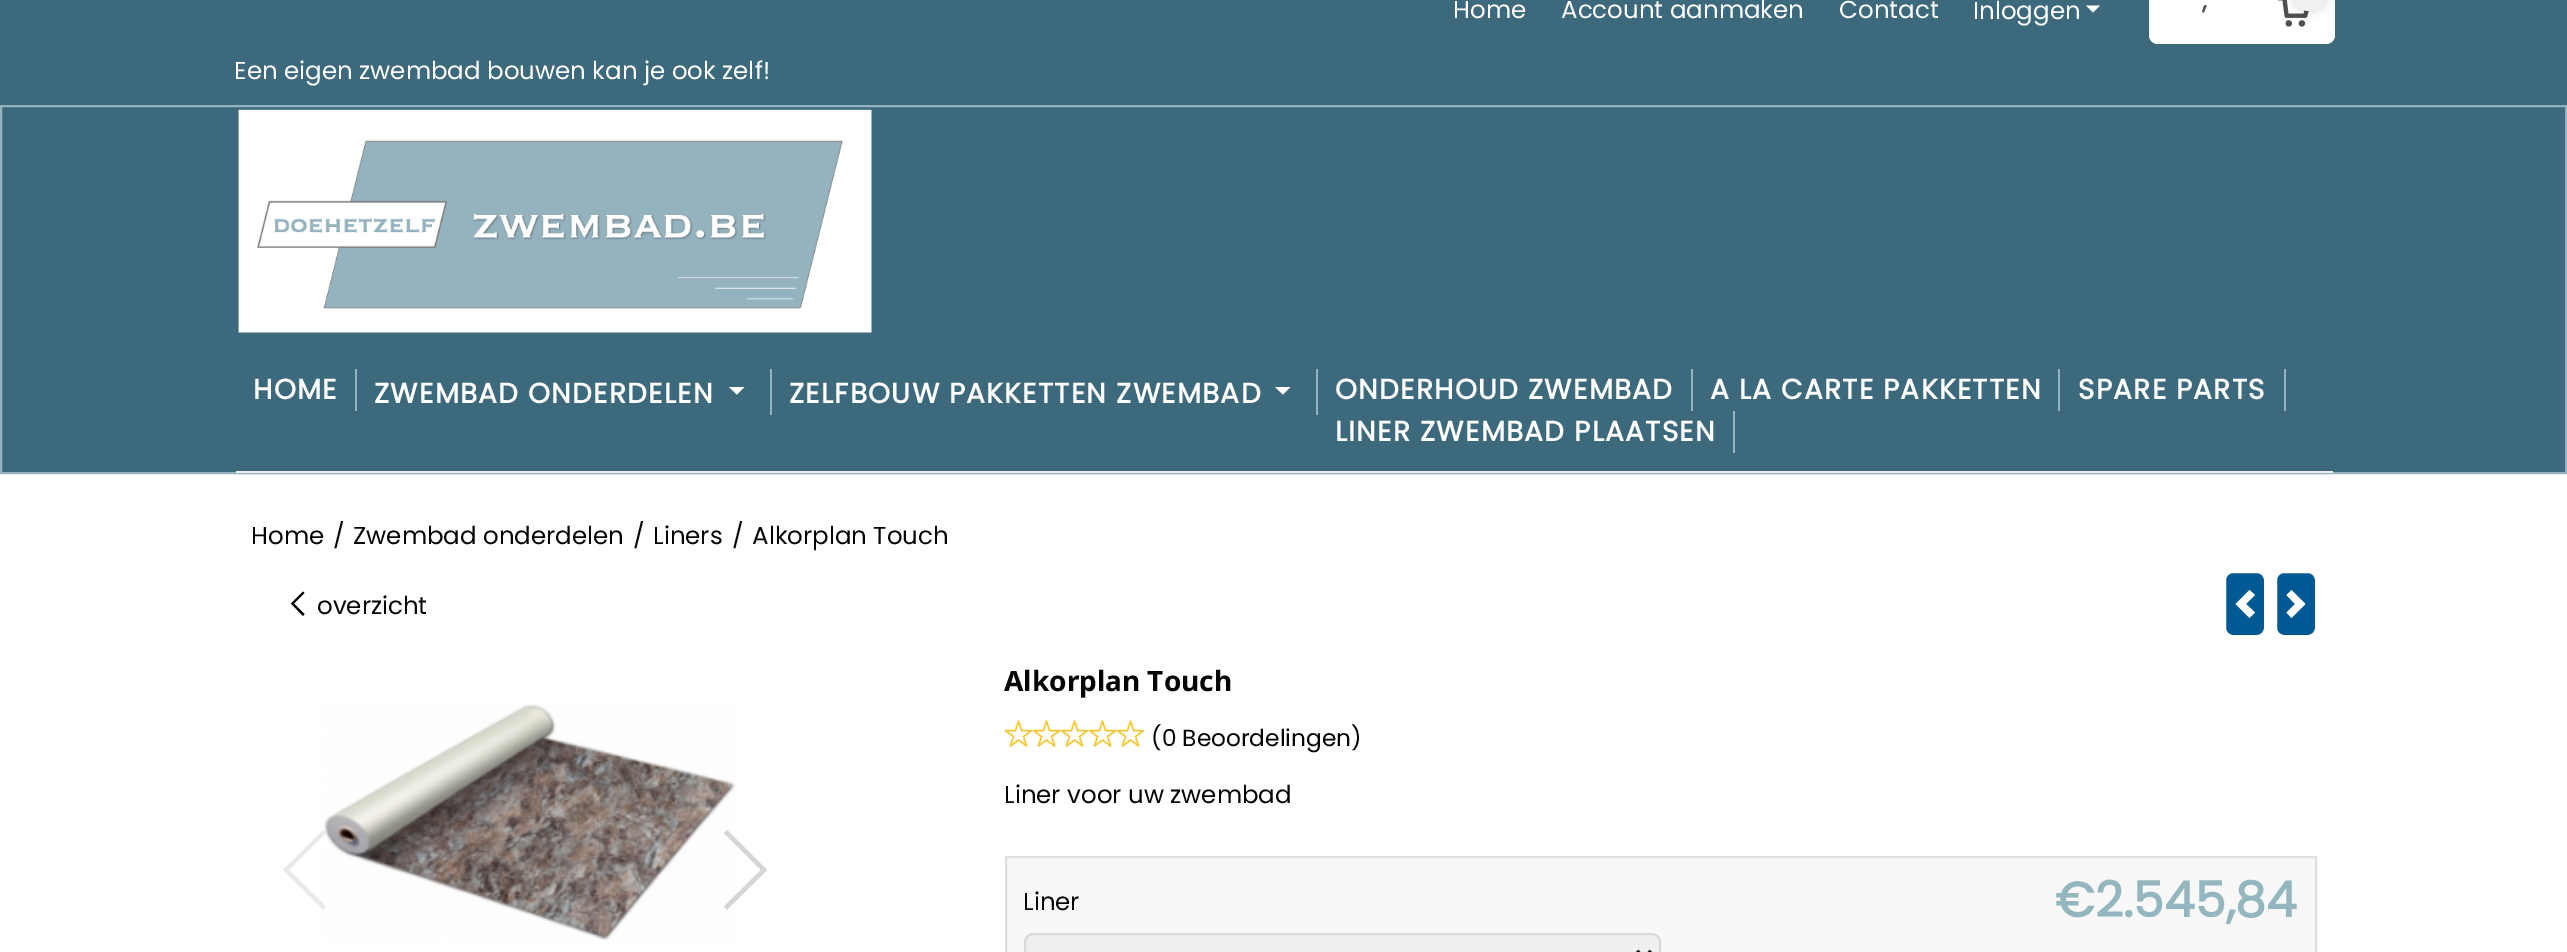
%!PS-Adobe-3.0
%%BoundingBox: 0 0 2567 952
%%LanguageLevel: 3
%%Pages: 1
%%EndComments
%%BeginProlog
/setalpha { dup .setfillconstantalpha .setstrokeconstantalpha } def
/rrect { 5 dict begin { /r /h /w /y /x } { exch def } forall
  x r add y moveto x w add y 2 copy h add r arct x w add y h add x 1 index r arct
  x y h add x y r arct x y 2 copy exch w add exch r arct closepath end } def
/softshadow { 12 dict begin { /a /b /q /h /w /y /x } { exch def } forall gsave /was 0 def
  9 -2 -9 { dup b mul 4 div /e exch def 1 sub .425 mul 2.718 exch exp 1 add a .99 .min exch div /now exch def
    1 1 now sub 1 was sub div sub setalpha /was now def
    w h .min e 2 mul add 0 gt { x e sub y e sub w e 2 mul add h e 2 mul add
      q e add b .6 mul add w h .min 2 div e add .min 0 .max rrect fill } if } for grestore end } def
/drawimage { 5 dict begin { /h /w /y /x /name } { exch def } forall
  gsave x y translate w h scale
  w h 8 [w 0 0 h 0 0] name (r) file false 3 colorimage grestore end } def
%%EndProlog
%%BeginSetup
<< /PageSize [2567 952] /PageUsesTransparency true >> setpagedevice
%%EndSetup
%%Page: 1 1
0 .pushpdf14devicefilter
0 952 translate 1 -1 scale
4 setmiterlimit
1 setgray
0 0 2567 952 rectfill
0.239 0.412 0.49 setrgbcolor
0 0 2567 105 rectfill
1 setgray
newpath 2086 5.5 moveto 2093 12.5 lineto 2100 5.5 lineto closepath fill
2149 -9 186 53 9 rrect fill
(images/1.raw) 2277 0 32 27 drawimage
0 setgray
2293 -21 33 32 16 5 0.16 softshadow
0.941 setgray
2293 -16 33 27 16 rrect fill
0.239 0.412 0.49 setrgbcolor
newpath 1 106 moveto 2566 106 lineto 2566 473 lineto 1 473 lineto closepath gsave fill grestore
0.584 0.698 0.749 setrgbcolor
2 setlinewidth
stroke
(images/2.raw) 238 109 634 224 drawimage
0.933 setgray
236 471 2097 2 rectfill
0.584 0.698 0.749 setrgbcolor
355 369 2 42 rectfill
770 369 2 46 rectfill
1 setgray
newpath 729 387 moveto 737 394.5 lineto 744.5 387 lineto closepath fill
0.584 0.698 0.749 setrgbcolor
1316 369 2 46 rectfill
1 setgray
newpath 1275 387 moveto 1283 394.5 lineto 1290.5 387 lineto closepath fill
0.584 0.698 0.749 setrgbcolor
1691 369 2 42 rectfill
2058 369 2 42 rectfill
2284 369 2 42 rectfill
1733 411 2 42 rectfill
0 setgray
newpath 303 616 moveto 304.5 614 lineto 294 603.5 lineto 304.5 593 lineto 303 591.5 lineto 291 603.5 lineto closepath fill
0 0.349 0.576 setrgbcolor
2225 572 40 64 8 rrect gsave fill grestore
1 setgray
stroke
newpath 2249.5 618 moveto 2255 612.5 lineto 2246 604 lineto 2255 595 lineto 2249.5 590 lineto 2235.5 604 lineto closepath fill
0 0.349 0.576 setrgbcolor
2276 572 40 64 8 rrect gsave fill grestore
1 setgray
stroke
newpath 2291.5 590 moveto 2286.5 595 lineto 2295 604 lineto 2286.5 612.5 lineto 2291.5 618 lineto 2305.5 604 lineto closepath fill
(images/3.raw) 323 703 413 238 drawimage
0.5 setalpha
0.839 setgray
4.5 setlinewidth
newpath 324.5 831.5 moveto 286 870 lineto 324.5 908 lineto stroke
1 setalpha
newpath 725.5 908 moveto 764 870 lineto 725.5 831.5 lineto stroke
(images/4.raw) 1004 720 29 27 drawimage
(images/5.raw) 1032 720 29 27 drawimage
(images/5.raw) 1060 720 29 27 drawimage
(images/5.raw) 1088 720 29 27 drawimage
(images/5.raw) 1116 720 29 27 drawimage
0.973 setgray
newpath 1006 857 moveto 2316 857 lineto 2316 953 lineto 1006 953 lineto closepath gsave fill grestore
0.878 setgray
2 setlinewidth
stroke
0.937 setgray
1025 934 635 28 8 rrect gsave fill grestore
0.851 setgray
stroke
0 setgray
3.5 setlinewidth
newpath 1637 951 moveto 1644 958 lineto 1651 951 lineto stroke
/Poppins-Regular [24.5 0 0 -24.5 0 0] selectfont
1 setgray
1453 18 moveto (Home) show
1561 18 moveto (Account aanmaken) show
1839 18 moveto (Contact) show
1973 19 moveto (Inloggen) show
/Poppins-Bold [24.5 0 0 -24.5 0 0] selectfont
0.31 setgray
2202 9 moveto (,) show
/Poppins-Regular [24.5 0 0 -24.5 0 0] selectfont
1 setgray
234 79 moveto (Een eigen zwembad bouwen kan je ook zelf!) show
/Poppins-Bold [28 0 0 -28 0 0] selectfont
253 399 moveto 1.25 0 (HOME) ashow
374 403 moveto 1.25 0 (ZWEMBAD ONDERDELEN) ashow
789 403 moveto 1.25 0 (ZELFBOUW PAKKETTEN ZWEMBAD) ashow
1335 399 moveto 1.25 0 (ONDERHOUD ZWEMBAD) ashow
1710 399 moveto 1.25 0 (A LA CARTE PAKKETTEN) ashow
2078 399 moveto 1.25 0 (SPARE PARTS) ashow
1335 441 moveto 1.25 0 (LINER ZWEMBAD PLAATSEN) ashow
/Poppins-Regular [24.5 0 0 -24.5 0 0] selectfont
0.02 setgray
251 544 moveto (Home) show
333 544 moveto (/) show
353 544 moveto (Zwembad onderdelen) show
633 544 moveto (/) show
653 544 moveto (Liners) show
732 544 moveto (/) show
752 544 moveto (Alkorplan Touch) show
317 614 moveto (overzicht) show
/NotoSans-Bold [28 0 0 -28 0 0] selectfont
1004 691 moveto (Alkorplan Touch) show
/Poppins-Regular [23.25 0 0 -23.25 0 0] selectfont
1151 746 moveto (\(0 Beoordelingen\)) show
/Poppins-Regular [24.5 0 0 -24.5 0 0] selectfont
1004 803 moveto (Liner voor uw zwembad) show
1023 910 moveto (Liner) show
/Poppins-Bold [49 0 0 -49 0 0] selectfont
0.576 0.714 0.749 setrgbcolor
2055 917 moveto (€2.545,84) show
.poppdf14devicefilter showpage
%%EOF
